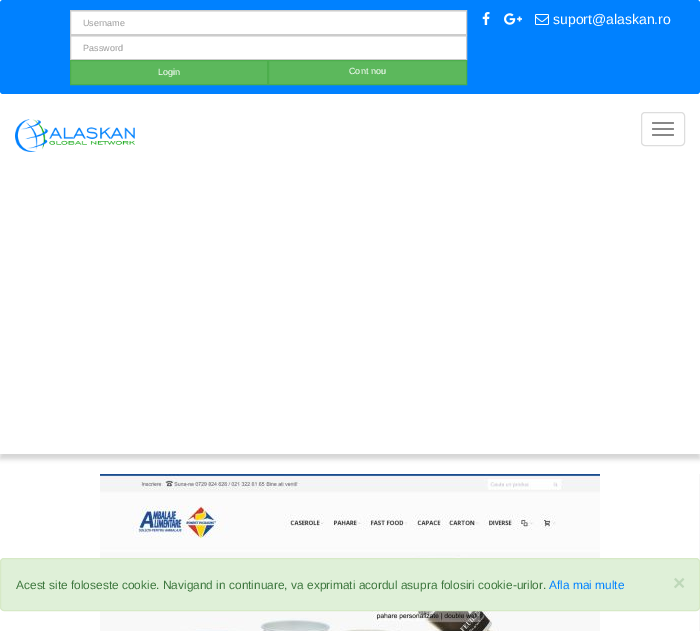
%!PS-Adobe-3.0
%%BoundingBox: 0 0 700 631
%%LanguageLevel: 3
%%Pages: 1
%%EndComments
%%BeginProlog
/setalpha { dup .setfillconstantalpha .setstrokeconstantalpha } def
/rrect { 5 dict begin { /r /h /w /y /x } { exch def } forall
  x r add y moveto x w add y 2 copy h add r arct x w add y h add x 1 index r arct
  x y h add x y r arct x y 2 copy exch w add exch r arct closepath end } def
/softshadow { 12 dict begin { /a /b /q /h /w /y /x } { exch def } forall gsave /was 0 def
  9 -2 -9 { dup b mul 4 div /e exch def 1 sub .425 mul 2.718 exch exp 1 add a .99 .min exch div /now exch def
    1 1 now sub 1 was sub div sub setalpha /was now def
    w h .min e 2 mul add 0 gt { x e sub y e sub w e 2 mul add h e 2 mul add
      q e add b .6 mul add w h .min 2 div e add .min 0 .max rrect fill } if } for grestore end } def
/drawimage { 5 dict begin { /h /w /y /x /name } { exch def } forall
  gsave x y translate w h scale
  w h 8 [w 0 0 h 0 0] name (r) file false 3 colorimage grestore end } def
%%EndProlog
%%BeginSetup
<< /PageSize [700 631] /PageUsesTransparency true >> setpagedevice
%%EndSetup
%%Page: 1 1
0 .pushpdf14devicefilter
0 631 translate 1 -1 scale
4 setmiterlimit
1 setgray
0 0 700 631 rectfill
gsave
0 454 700 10 rectclip
0.827 setgray
0 5 700 454 0 2.5 1 softshadow
grestore
0 0.506 1 setrgbcolor
0 0 700 94 3 rrect fill
1 setgray
71 12 395 22 rectfill
0.925 setgray
71 11 395 1 rectfill
0.8 setgray
70.5 10.5 396 24 rectstroke
1 setgray
71 37 395 22 rectfill
0.925 setgray
71 36 395 1 rectfill
0.8 setgray
70.5 35.5 396 24 rectstroke
0.361 0.722 0.361 setrgbcolor
newpath 70.5 60.5 moveto 267.5 60.5 lineto 267.5 84.5 lineto 70.5 84.5 lineto closepath gsave fill grestore
0.298 0.682 0.298 setrgbcolor
stroke
0.361 0.722 0.361 setrgbcolor
newpath 268.5 60.5 moveto 466.5 60.5 lineto 466.5 84.5 lineto 268.5 84.5 lineto closepath gsave fill grestore
0.298 0.682 0.298 setrgbcolor
stroke
(images/1.raw) 482 12 8 13 drawimage
(images/2.raw) 504 13 18 12 drawimage
(images/3.raw) 535 14 14 11 drawimage
(images/4.raw) 15 119 120 33 drawimage
0.867 setgray
641.5 112.5 43 33 3.5 rrect stroke
0.533 setgray
652 122 22 2 1 rrect fill
652 128 22 2 1 rrect fill
652 134 22 2 1 rrect fill
0.965 setgray
699 474 1 157 rectfill
(images/5.raw) 100 474 500 157 drawimage
0.875 0.941 0.847 setrgbcolor
0.5 558.5 699 52 3.5 rrect gsave fill grestore
0.839 0.914 0.776 setrgbcolor
stroke
/LiberationSans-Regular [9 0 0 -9 0 0] selectfont
0.6 setgray
83 26 moveto (Username) show
83 51 moveto (Password) show
1 setgray
158 75 moveto (Login) show
349 74 moveto (Cont nou) show
/LiberationSans-Regular [14 0 0 -14 0 0] selectfont
553 24 moveto (suport@alaskan.ro) show
/LiberationSans-Regular [11.9 0 0 -11.9 0 0] selectfont
0.235 0.463 0.239 setrgbcolor
16 589 moveto (Acest site foloseste cookie. Navigand in continuare, va exprimati acordul asupra folosiri cookie-urilor.) show
0 0.506 1 setrgbcolor
549 589 moveto (Afla mai multe) show
/LiberationSans-Bold [21 0 0 -21 0 0] selectfont
0.745 0.847 0.725 setrgbcolor
673 590 moveto (×) show
.poppdf14devicefilter showpage
%%EOF
